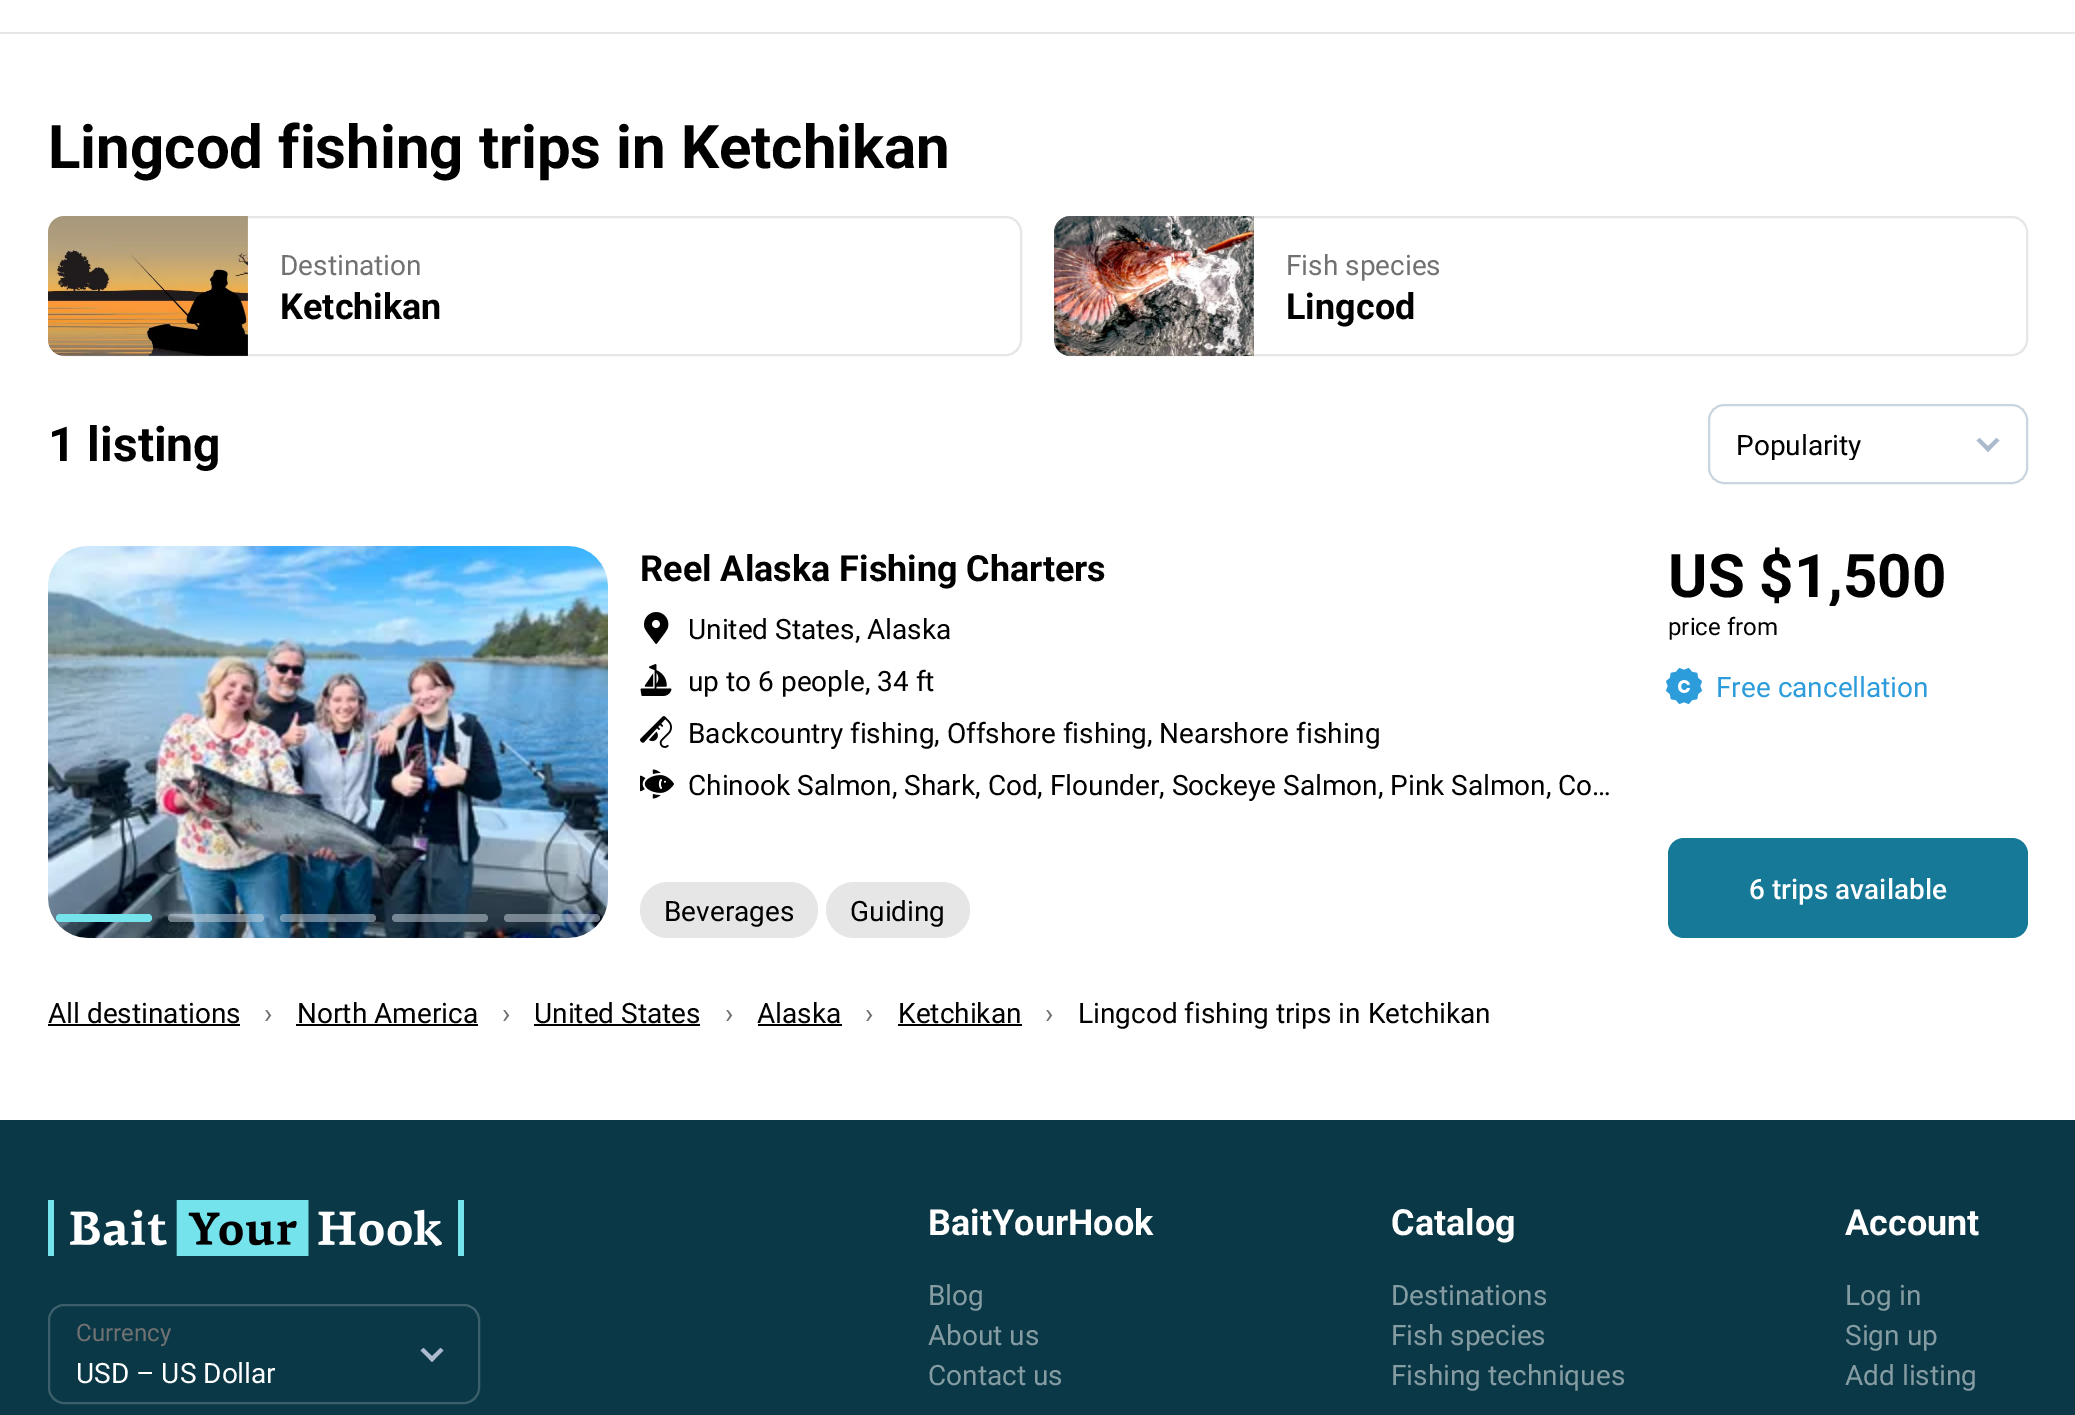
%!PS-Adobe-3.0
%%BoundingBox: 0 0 2075 1415
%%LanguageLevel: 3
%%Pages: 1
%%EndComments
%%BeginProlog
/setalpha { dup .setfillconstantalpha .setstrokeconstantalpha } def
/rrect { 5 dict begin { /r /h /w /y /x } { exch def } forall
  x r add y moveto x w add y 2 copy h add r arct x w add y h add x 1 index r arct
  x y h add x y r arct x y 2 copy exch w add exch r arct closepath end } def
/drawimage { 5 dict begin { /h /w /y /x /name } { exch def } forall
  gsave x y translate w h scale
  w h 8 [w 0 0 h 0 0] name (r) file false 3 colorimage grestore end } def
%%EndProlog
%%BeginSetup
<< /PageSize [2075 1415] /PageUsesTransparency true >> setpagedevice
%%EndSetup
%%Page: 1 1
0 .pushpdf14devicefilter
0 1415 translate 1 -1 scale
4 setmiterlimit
1 setgray
0 0 2075 1415 rectfill
0.902 setgray
0 32 2075 2 rectfill
2 setlinewidth
49 217 972 138 15 rrect stroke
(images/1.raw) 48 216 200 140 drawimage
1055 217 972 138 15 rrect stroke
(images/2.raw) 1054 216 200 140 drawimage
0.796 0.835 0.878 setrgbcolor
1709 405 318 78 15 rrect stroke
0.671 0.733 0.804 setrgbcolor
newpath 1996.5 438 moveto 1999.5 440.5 lineto 1988 452 lineto 1985 449 lineto closepath fill
newpath 1979.5 438 moveto 1991 449 lineto 1988 452 lineto 1976.5 440.5 lineto closepath fill
0.961 setgray
48 546 560 392 40 rrect fill
(images/3.raw) 48 546 560 392 drawimage
0.455 0.89 0.925 setrgbcolor
56 914 96 8 4 rrect fill
0.5 setalpha
0.796 0.835 0.878 setrgbcolor
168 914 96 8 4 rrect fill
280 914 96 8 4 rrect fill
392 914 96 8 4 rrect fill
504 914 96 8 4 rrect fill
1 setalpha
(images/4.raw) 644 612 25 32 drawimage
(images/5.raw) 640 664 32 32 drawimage
(images/6.raw) 640 716 32 32 drawimage
(images/7.raw) 640 769 34 30 drawimage
0.902 setgray
640 882 178 56 28 rrect fill
826 882 144 56 28 rrect fill
(images/8.raw) 1666 668 36 36 drawimage
0.09 0.475 0.596 setrgbcolor
1668 838 360 100 16 rrect fill
0 setgray
48 1024 192 2 rectfill
296 1024 182 2 rectfill
534 1024 166 2 rectfill
758 1024 84 2 rectfill
898 1024 124 2 rectfill
0.039 0.22 0.275 setrgbcolor
0 1120 2075 295 rectfill
(images/9.raw) 48 1200 416 56 drawimage
0.231 0.376 0.42 setrgbcolor
49 1305 430 98 15 rrect stroke
0.671 0.733 0.804 setrgbcolor
newpath 440.5 1348 moveto 443.5 1350.5 lineto 432 1362 lineto 429 1359 lineto closepath fill
newpath 423.5 1348 moveto 435 1359 lineto 432 1362 lineto 420.5 1350.5 lineto closepath fill
/Roboto-Bold [60 0 0 -60 0 0] selectfont
0 setgray
48 168 moveto (Lingcod fishing trips in Ketchikan) show
/Roboto-Regular [28 0 0 -28 0 0] selectfont
0.443 setgray
280 275 moveto (Destination) show
/Roboto-Bold [36 0 0 -36 0 0] selectfont
0 setgray
280 319 moveto (Ketchikan) show
/Roboto-Regular [28 0 0 -28 0 0] selectfont
0.443 setgray
1286 275 moveto (Fish species) show
/Roboto-Bold [36 0 0 -36 0 0] selectfont
0 setgray
1286 319 moveto (Lingcod) show
/Roboto-Bold [48 0 0 -48 0 0] selectfont
48 461 moveto (1 listing) show
gsave
1736 428 216 32 rectclip
/Roboto-Regular [28 0 0 -28 0 0] selectfont
1736 455 moveto (Popularity) show
grestore
/Roboto-Bold [36 0 0 -36 0 0] selectfont
640 581 moveto (Reel Alaska Fishing Charters) show
/Roboto-Regular [28 0 0 -28 0 0] selectfont
688 639 moveto (United States, Alaska) show
688 691 moveto (up to 6 people, 34 ft) show
688 743 moveto (Backcountry fishing, Offshore fishing, Nearshore fishing) show
688 795 moveto (Chinook Salmon, Shark, Cod, Flounder, Sockeye Salmon, Pink Salmon, Co…) show
664 921 moveto (Beverages) show
850 921 moveto (Guiding) show
gsave
1668 546 360 60 rectclip
/Roboto-Bold [60 0 0 -60 0 0] selectfont
1668 597 moveto (US $1,500) show
grestore
/Roboto-Regular [24 0 0 -24 0 0] selectfont
1668 635 moveto (price from) show
/Roboto-Regular [28 0 0 -28 0 0] selectfont
0.176 0.612 0.859 setrgbcolor
1716 697 moveto (Free cancellation) show
/Roboto-Medium [28 0 0 -28 0 0] selectfont
1 setgray
1749 899 moveto (6 trips available) show
/Roboto-Regular [28 0 0 -28 0 0] selectfont
0 setgray
48 1023 moveto (All destinations) show
0.443 setgray
264 1023 moveto (›) show
0 setgray
297 1023 moveto (North America) show
0.443 setgray
502 1023 moveto (›) show
0 setgray
534 1023 moveto (United States) show
0.443 setgray
725 1023 moveto (›) show
0 setgray
757 1023 moveto (Alaska) show
0.443 setgray
865 1023 moveto (›) show
0 setgray
898 1023 moveto (Ketchikan) show
0.443 setgray
1045 1023 moveto (›) show
0 setgray
1078 1023 moveto (Lingcod fishing trips in Ketchikan) show
/Roboto-Regular [24 0 0 -24 0 0] selectfont
0.443 setgray
76 1341 moveto (Currency) show
/Roboto-Regular [28 0 0 -28 0 0] selectfont
1 setgray
76 1383 moveto (USD – US Dollar) show
/Roboto-Bold [36 0 0 -36 0 0] selectfont
928 1235 moveto (BaitYourHook) show
/Roboto-Regular [28 0 0 -28 0 0] selectfont
0.522 0.612 0.639 setrgbcolor
928 1305 moveto (Blog) show
928 1345 moveto (About us) show
928 1385 moveto (Contact us) show
/Roboto-Bold [36 0 0 -36 0 0] selectfont
1 setgray
1391 1235 moveto (Catalog) show
/Roboto-Regular [28 0 0 -28 0 0] selectfont
0.522 0.612 0.639 setrgbcolor
1391 1305 moveto (Destinations) show
1391 1345 moveto (Fish species) show
1391 1385 moveto (Fishing techniques) show
/Roboto-Bold [36 0 0 -36 0 0] selectfont
1 setgray
1845 1235 moveto (Account) show
/Roboto-Regular [28 0 0 -28 0 0] selectfont
0.522 0.612 0.639 setrgbcolor
1845 1305 moveto (Log in) show
1845 1345 moveto (Sign up) show
1845 1385 moveto (Add listing) show
.poppdf14devicefilter showpage
%%EOF
